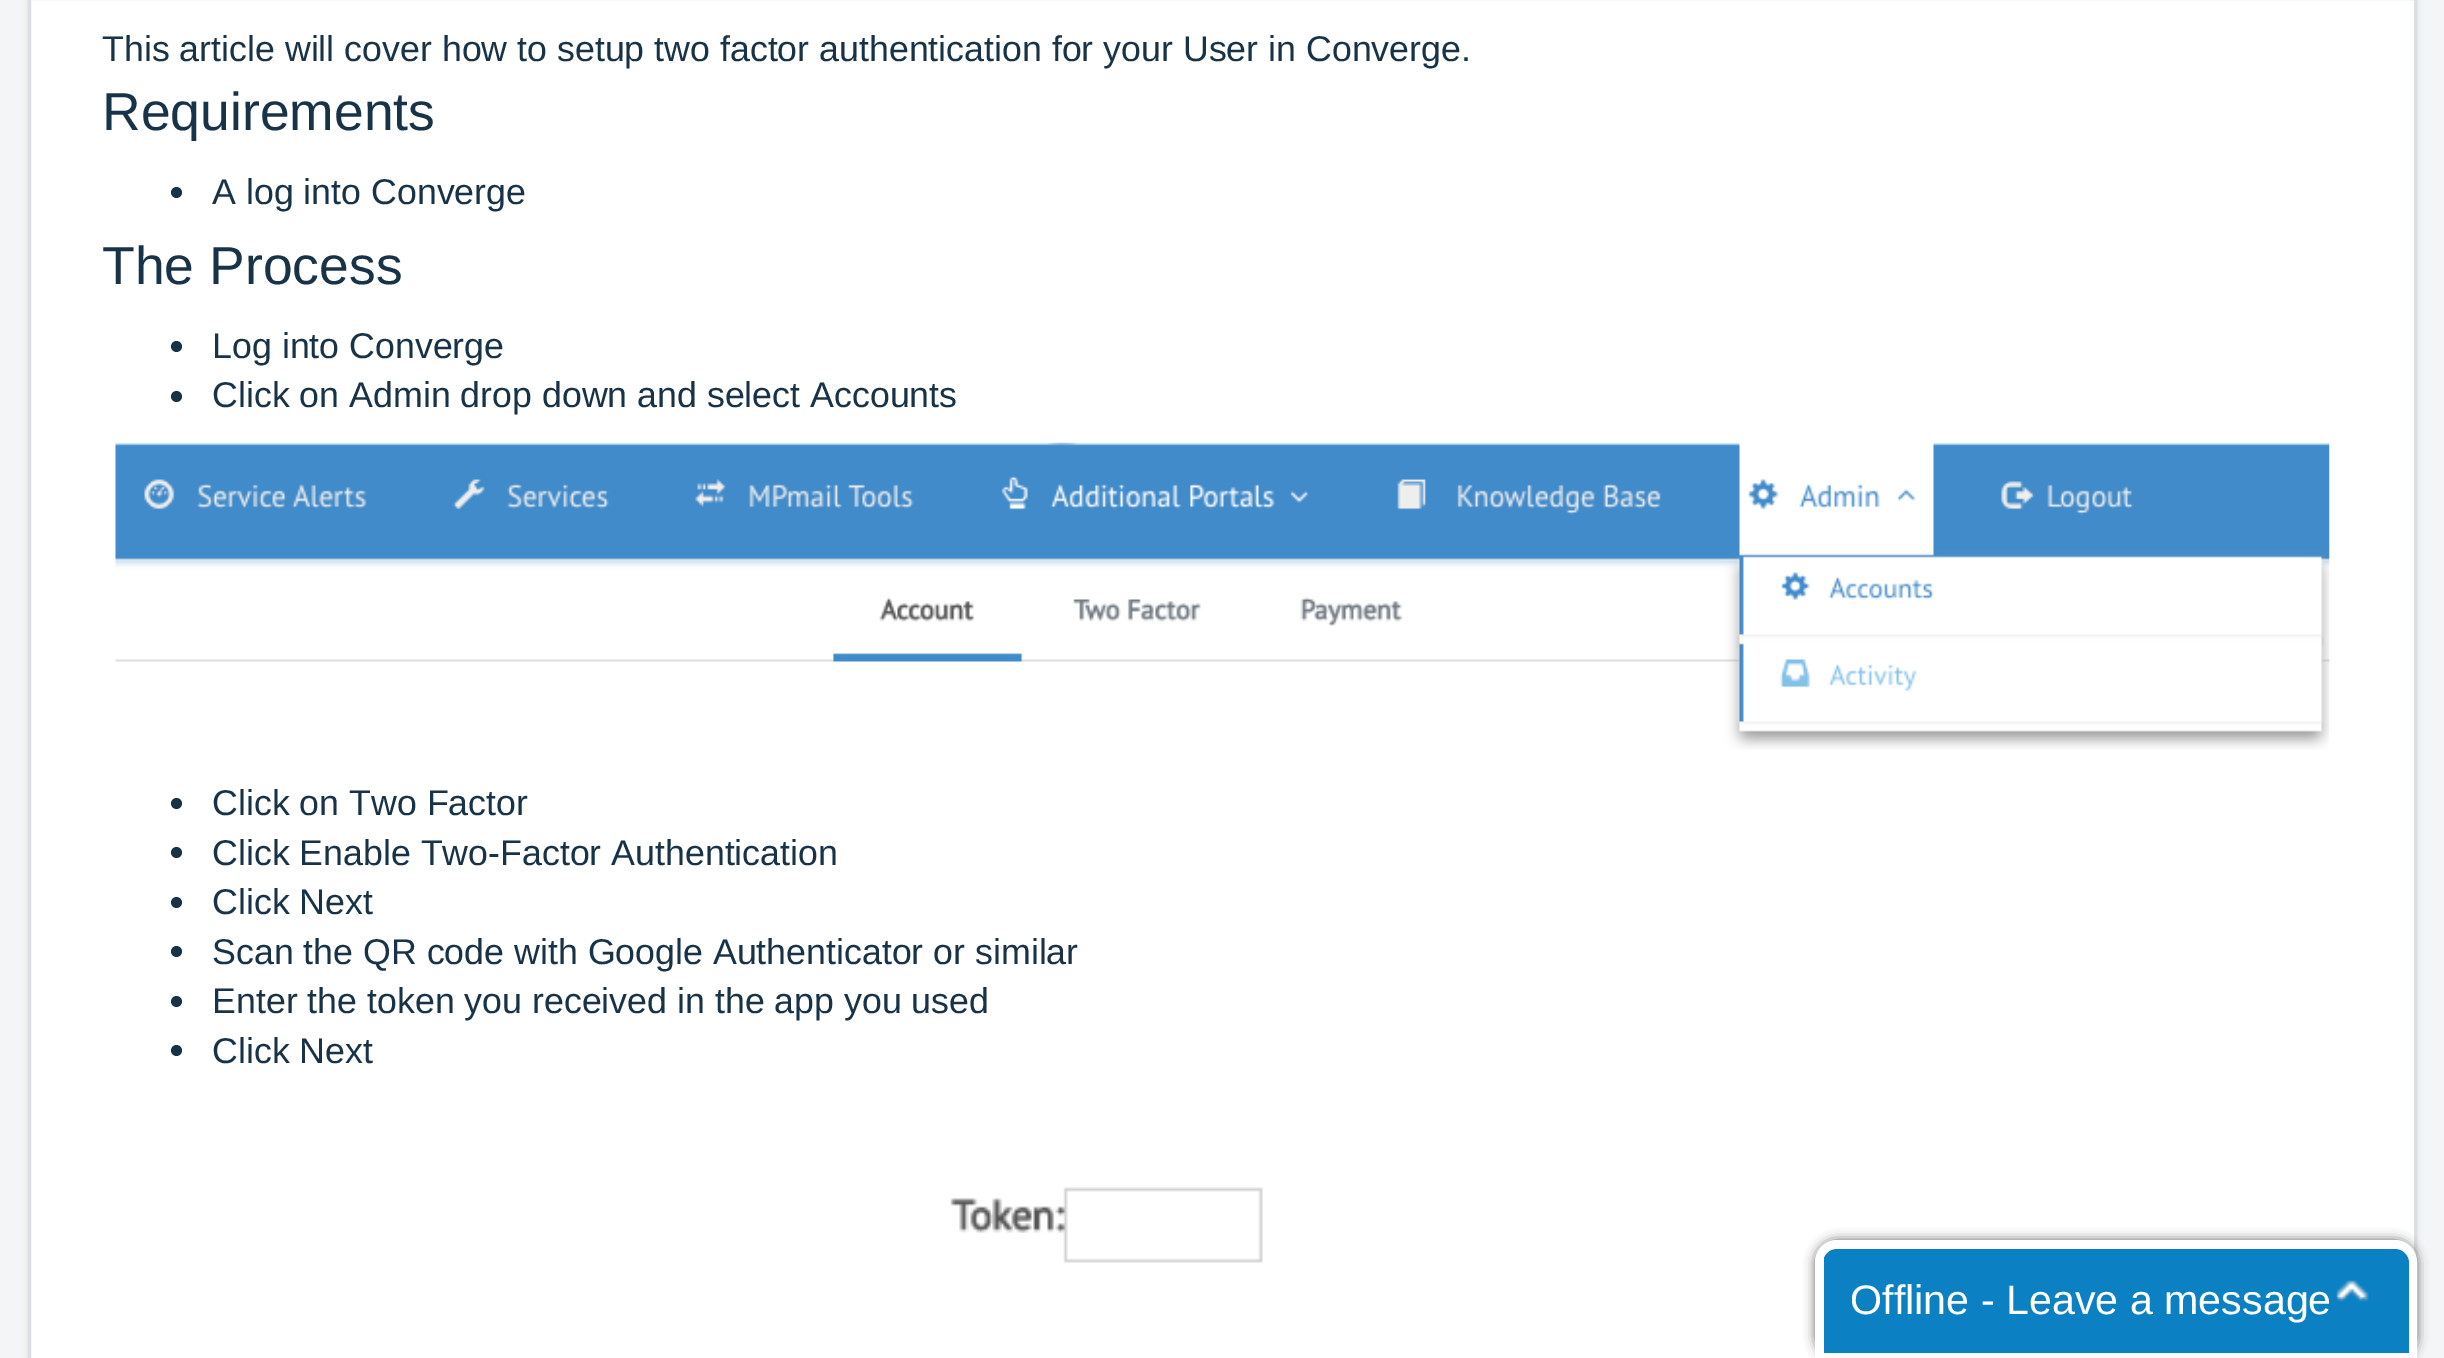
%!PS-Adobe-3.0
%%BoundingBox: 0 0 2444 1358
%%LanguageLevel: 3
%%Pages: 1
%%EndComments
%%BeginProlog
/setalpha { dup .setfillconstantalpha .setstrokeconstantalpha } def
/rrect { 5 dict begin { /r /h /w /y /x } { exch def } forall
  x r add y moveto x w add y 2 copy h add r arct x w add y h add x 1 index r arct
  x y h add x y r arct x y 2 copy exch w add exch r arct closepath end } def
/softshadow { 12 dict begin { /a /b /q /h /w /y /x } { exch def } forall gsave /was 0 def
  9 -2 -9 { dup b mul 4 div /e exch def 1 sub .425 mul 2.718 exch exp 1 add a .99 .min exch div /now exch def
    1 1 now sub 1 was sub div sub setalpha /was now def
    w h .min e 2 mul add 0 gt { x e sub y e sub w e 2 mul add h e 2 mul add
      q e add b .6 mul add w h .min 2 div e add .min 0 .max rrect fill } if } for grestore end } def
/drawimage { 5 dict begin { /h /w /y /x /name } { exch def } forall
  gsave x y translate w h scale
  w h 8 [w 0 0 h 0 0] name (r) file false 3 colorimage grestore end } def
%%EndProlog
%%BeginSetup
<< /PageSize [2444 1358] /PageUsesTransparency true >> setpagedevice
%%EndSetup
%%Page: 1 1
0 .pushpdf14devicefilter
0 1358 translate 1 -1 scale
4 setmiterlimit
0.953 0.961 0.969 setrgbcolor
0 0 2444 1358 rectfill
0.247 0.247 0.267 setrgbcolor
28 -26 2389 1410 17 3 0.15 softshadow
1 setgray
newpath 29.5 -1.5 moveto 2415.5 -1.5 lineto 2415.5 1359.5 lineto 29.5 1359.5 lineto closepath gsave fill grestore
0.855 0.875 0.89 setrgbcolor
3 setlinewidth
stroke
0.094 0.196 0.278 setrgbcolor
newpath 176.5 192.5 5.5 0 360 arc closepath fill
newpath 176.5 346.5 5.5 0 360 arc closepath fill
newpath 176.5 396.5 5.5 0 360 arc closepath fill
(images/1.raw) 115 442 2215 308 drawimage
newpath 176.5 803.5 5.5 0 360 arc closepath fill
newpath 176.5 852.5 5.5 0 360 arc closepath fill
newpath 176.5 902.5 5.5 0 360 arc closepath fill
newpath 176.5 951.5 5.5 0 360 arc closepath fill
newpath 176.5 1001.5 5.5 0 360 arc closepath fill
newpath 176.5 1050.5 5.5 0 360 arc closepath fill
(images/2.raw) 950 1187 313 76 drawimage
gsave
newpath 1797 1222 moveto 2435 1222 lineto 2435 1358 lineto 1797 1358 lineto closepath 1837 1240 moveto 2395 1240 lineto 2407 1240 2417 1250 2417 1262 curveto 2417 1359 lineto 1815 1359 lineto 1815 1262 lineto 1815 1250 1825 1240 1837 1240 curveto closepath eoclip newpath
0.4 setgray
1815 1240 602 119 22 5.5 1 softshadow
grestore
0.043 0.502 0.765 setrgbcolor
newpath 1837 1249 moveto 2395 1249 lineto 2402.5 1249 2409 1255.5 2409 1263 curveto 2409 1353 lineto 1823 1353 lineto 1823 1263 lineto 1823 1255.5 1829.5 1249 1837 1249 curveto closepath fill
(images/3.raw) 2336 1280 33 22 drawimage
1 setgray
6 setlinewidth
newpath 1837 1243 moveto 2395 1243 lineto 2405.5 1243 2414 1251.5 2414 1262 curveto 2414 1356 lineto 1818 1356 lineto 1818 1262 lineto 1818 1251.5 1826.5 1243 1837 1243 curveto closepath stroke
1823 1251 1 107 rectfill
/LiberationSans-Regular [35.75 0 0 -35.75 0 0] selectfont
0.094 0.196 0.278 setrgbcolor
102 61 moveto (This article will cover how to setup two factor authentication for your User in Converge.) show
/LiberationSans-Regular [53.5 0 0 -53.5 0 0] selectfont
102 130 moveto (Requirements) show
/LiberationSans-Regular [35.75 0 0 -35.75 0 0] selectfont
212 204 moveto (A log into Converge) show
/LiberationSans-Regular [53.5 0 0 -53.5 0 0] selectfont
102 284 moveto (The Process) show
/LiberationSans-Regular [35.75 0 0 -35.75 0 0] selectfont
212 358 moveto (Log into Converge) show
212 407 moveto (Click on Admin drop down and select Accounts) show
212 815 moveto (Click on Two Factor) show
212 865 moveto (Click Enable Two-Factor Authentication) show
212 914 moveto (Click Next) show
212 964 moveto (Scan the QR code with Google Authenticator or similar) show
212 1013 moveto (Enter the token you received in the app you used) show
212 1063 moveto (Click Next) show
/LiberationSans-Regular [41.25 0 0 -41.25 0 0] selectfont
1 setgray
1850 1314 moveto (Offline - Leave a message) show
.poppdf14devicefilter showpage
%%EOF
